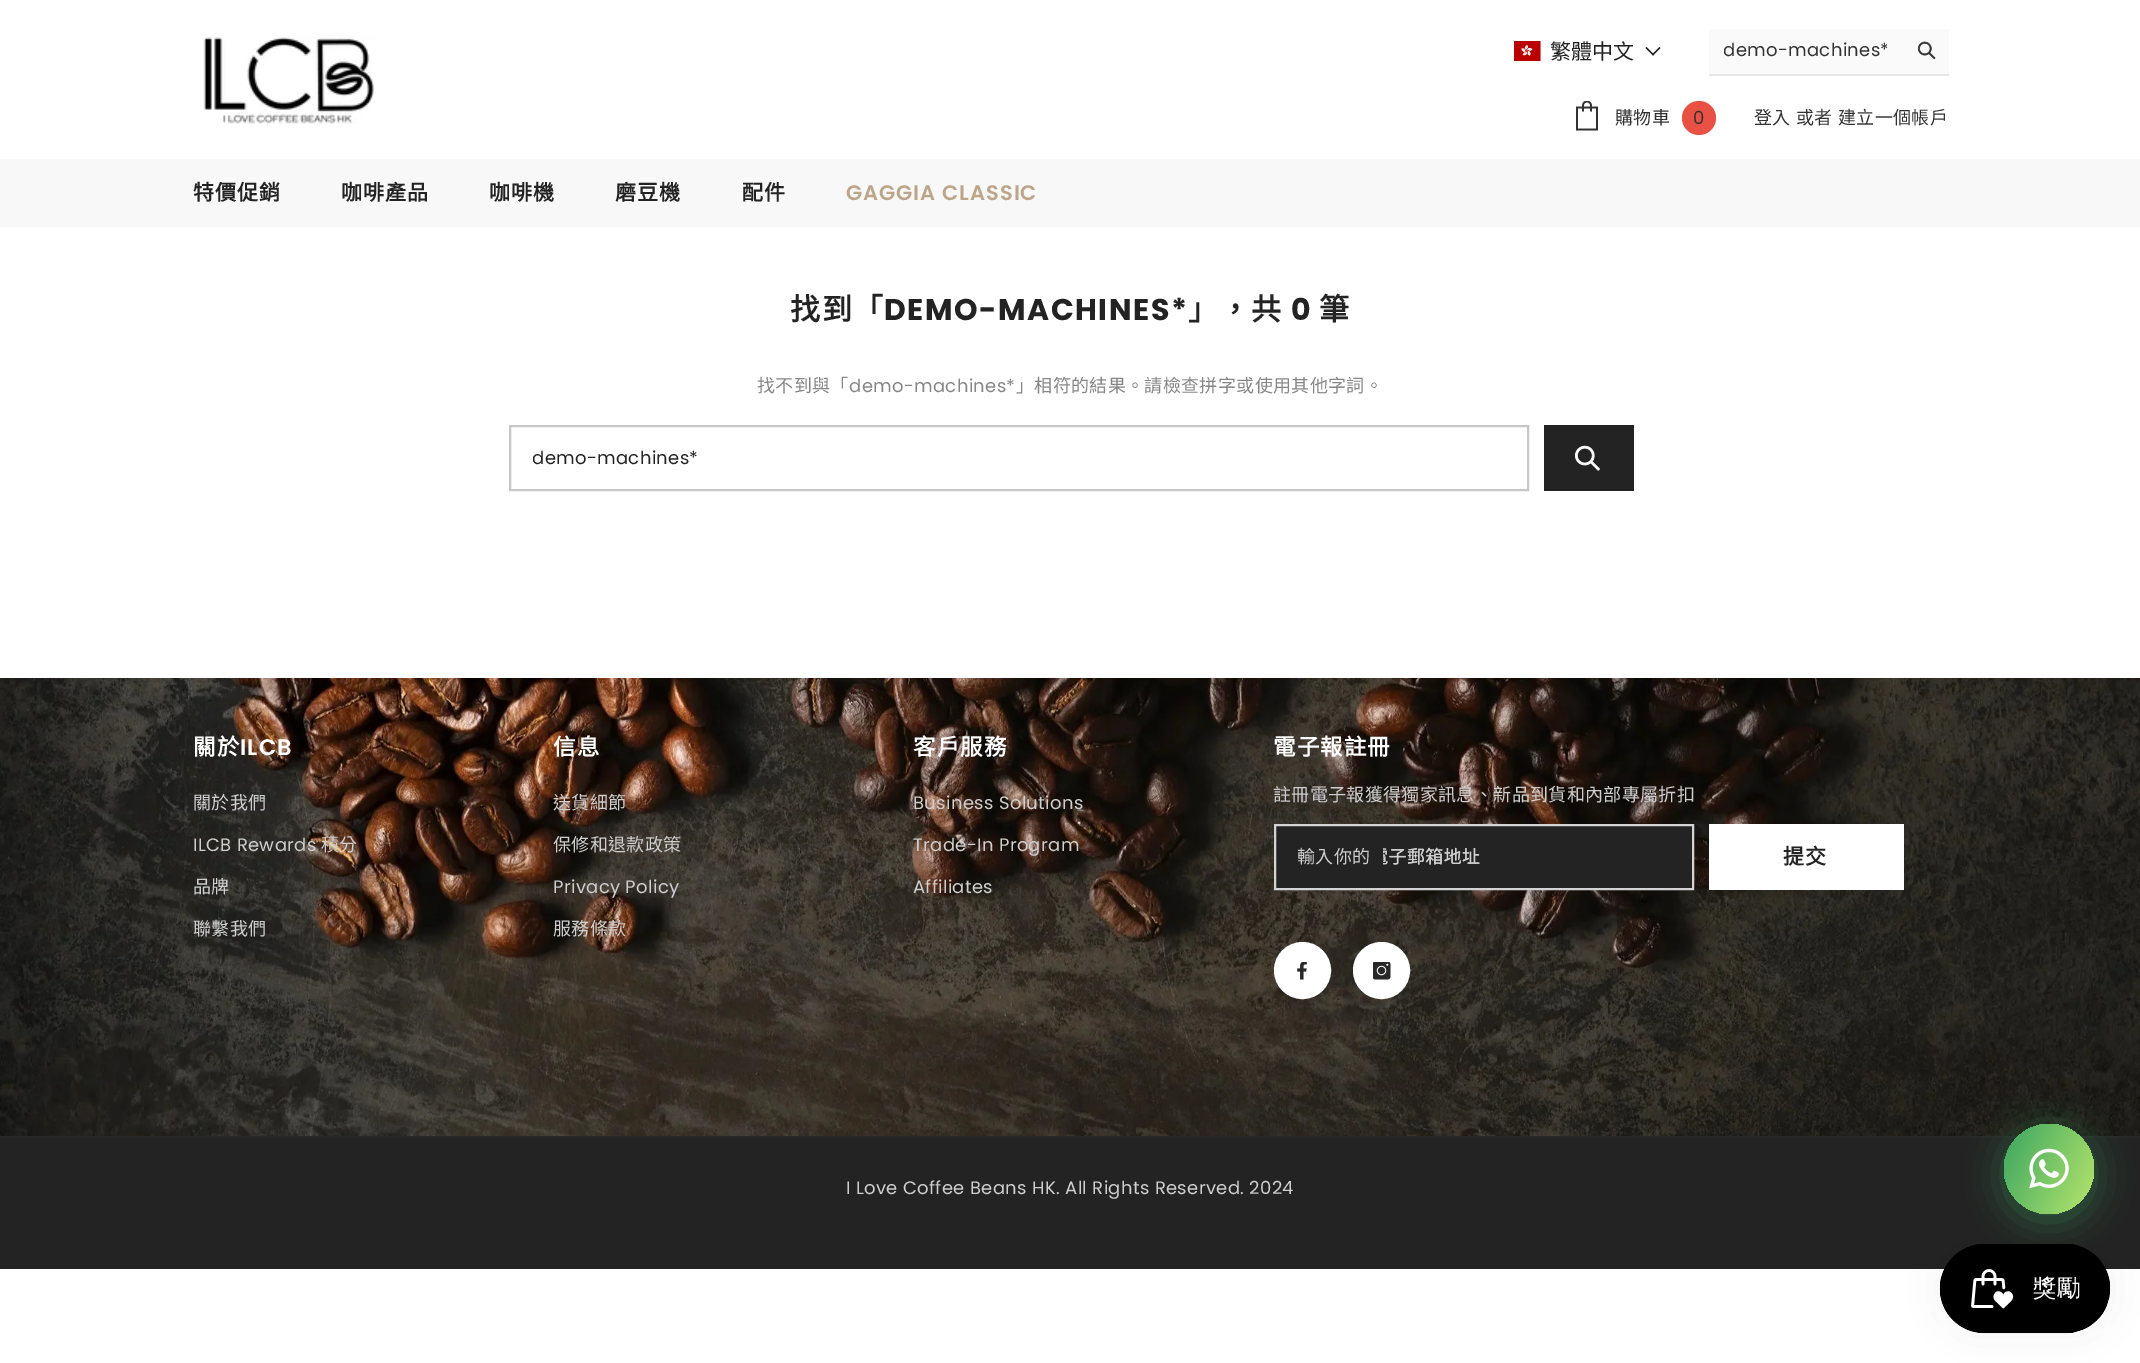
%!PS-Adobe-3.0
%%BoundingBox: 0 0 2140 1363
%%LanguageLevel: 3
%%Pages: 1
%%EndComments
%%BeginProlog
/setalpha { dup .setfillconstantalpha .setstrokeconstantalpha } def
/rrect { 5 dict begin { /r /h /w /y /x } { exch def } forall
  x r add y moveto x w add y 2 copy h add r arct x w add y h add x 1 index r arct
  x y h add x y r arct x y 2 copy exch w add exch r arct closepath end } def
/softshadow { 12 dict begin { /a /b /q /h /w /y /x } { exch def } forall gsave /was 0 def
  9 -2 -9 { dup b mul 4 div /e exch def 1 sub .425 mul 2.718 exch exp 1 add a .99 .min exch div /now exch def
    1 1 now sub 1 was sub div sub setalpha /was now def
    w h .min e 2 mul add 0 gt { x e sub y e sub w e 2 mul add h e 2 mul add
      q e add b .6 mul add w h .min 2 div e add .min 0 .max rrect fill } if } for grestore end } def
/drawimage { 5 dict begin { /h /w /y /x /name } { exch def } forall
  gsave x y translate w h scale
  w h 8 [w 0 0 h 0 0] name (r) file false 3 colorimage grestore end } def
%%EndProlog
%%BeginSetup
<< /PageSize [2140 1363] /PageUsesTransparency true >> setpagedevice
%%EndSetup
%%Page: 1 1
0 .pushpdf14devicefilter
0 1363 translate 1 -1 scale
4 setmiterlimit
1 setgray
0 0 2140 1363 rectfill
(images/1.raw) 203 35 171 89 drawimage
(images/2.raw) 1514 41 27 20 drawimage
0.102 setgray
newpath 1659.5 47 moveto 1660.5 48 lineto 1653 55.5 lineto 1652 54.5 lineto closepath fill
newpath 1646.5 47 moveto 1654 54.5 lineto 1653 55.5 lineto 1645.5 48 lineto closepath fill
0.98 setgray
1709 29 240 45 rectfill
0.906 setgray
1709 74 240 2 rectfill
(images/3.raw) 1917 41 19 19 drawimage
(images/4.raw) 1576 101 22 30 drawimage
0.914 0.318 0.267 setrgbcolor
newpath 1699 118 17 0 360 arc closepath fill
0.973 setgray
0 159 2140 68 rectfill
(images/7.raw) 0 678 2140 458 drawimage
0.137 setgray
newpath 1275 825 moveto 1693 825 lineto 1693 889 lineto 1275 889 lineto closepath gsave fill grestore
0.827 setgray
2 setlinewidth
stroke
(images/5.raw) 1383 847 97 18 drawimage
0.78 setgray
510 426 1018 64 rectstroke
0.137 setgray
1544 425 90 66 rectfill
(images/6.raw) 1575 445 25 26 drawimage
1 setgray
1709 824 195 66 rectfill
newpath 1302.5 970.5 27.5 0 360 arc closepath gsave fill grestore
stroke
(images/8.raw) 1297 962 10 18 drawimage
newpath 1381.5 970.5 27.5 0 360 arc closepath gsave fill grestore
stroke
(images/9.raw) 1373 962 18 18 drawimage
0.137 setgray
0 1138 2140 131 rectfill
0.157 setgray
0 1136 2140 2 rectfill
0.227 0.647 0.376 setrgbcolor
2004 1130 90 90 45 18 0.5 softshadow
gsave newpath 2049 1169 45 0 360 arc closepath clip newpath
<< /ShadingType 2 /ColorSpace /DeviceRGB /Coords [1995 1143 2103 1194] /Extend [true true] /Function << /FunctionType 2 /Domain [0 1] /C0 [0.227 0.647 0.376] /C1 [0.718 0.902 0.424] /N 1 >> >> shfill grestore
(images/10.raw) 2029 1148 40 41 drawimage
0 setgray
1940 1244 171 90 45 19 0.05 softshadow
(images/11.raw) 1939 1244 172 90 drawimage
/NotoSansCJKTC-Regular [21 0 0 -21 0 0] selectfont
0.137 setgray
1550 59 moveto (繁體中文) show
gsave
1724 35 163 33 rectclip
/Poppins-Regular [18 0 0 -18 0 0] selectfont
0.196 setgray
1723 56 moveto 0.35 0 (demo-machines*) ashow
grestore
/NotoSansCJKTC-Regular [18 0 0 -18 0 0] selectfont
0.196 setgray
1615 124 moveto 0.35 0 (購物車) ashow
/Poppins-Regular [18 0 0 -18 0 0] selectfont
1693 124 moveto 0.35 0 (0) ashow
/NotoSansCJKTC-Regular [18 0 0 -18 0 0] selectfont
1754 124 moveto 0.35 0 (登入) ashow
1796 124 moveto 0.35 0 (或者) ashow
1838 124 moveto 0.35 0 (建立一個帳戶) ashow
/NotoSansCJKTC-Bold [21 0 0 -21 0 0] selectfont
0.137 setgray
193 200 moveto 1 0 (特價促銷) ashow
341 200 moveto 1 0 (咖啡產品) ashow
489 200 moveto 1 0 (咖啡機) ashow
615 200 moveto 1 0 (磨豆機) ashow
742 200 moveto 1 0 (配件) ashow
/Poppins-SemiBold [21 0 0 -21 0 0] selectfont
0.737 0.647 0.537 setrgbcolor
846 200 moveto 1 0 (GAGGIA CLASSIC) ashow
/NotoSansCJKTC-Bold [30 0 0 -30 0 0] selectfont
0.137 setgray
790 320 moveto 1.5 0 (找到「) ashow
/Poppins-Bold [30 0 0 -30 0 0] selectfont
884 320 moveto 1.5 0 (DEMO-MACHINES*) ashow
/NotoSansCJKTC-Bold [30 0 0 -30 0 0] selectfont
1188 320 moveto 1.5 0 (」，共) ashow
/Poppins-Bold [30 0 0 -30 0 0] selectfont
1291 320 moveto 1.5 0 (0) ashow
/NotoSansCJKTC-Bold [30 0 0 -30 0 0] selectfont
1319 320 moveto 1.5 0 (筆) ashow
/NotoSansCJKTC-Regular [18 0 0 -18 0 0] selectfont
0.525 setgray
757 392 moveto 0.35 0 (找不到與「) ashow
/Poppins-Regular [18 0 0 -18 0 0] selectfont
849 392 moveto 0.35 0 (demo-machines*) ashow
/NotoSansCJKTC-Regular [18 0 0 -18 0 0] selectfont
1016 392 moveto 0.35 0 (」相符的結果。請檢查拼字或使用其他字詞。) ashow
gsave
533 441 954 33 rectclip
/Poppins-Regular [18 0 0 -18 0 0] selectfont
0.137 setgray
532 464 moveto 0.35 0 (demo-machines*) ashow
grestore
/NotoSansCJKTC-Bold [22.5 0 0 -22.5 0 0] selectfont
1 setgray
193 755 moveto 1 0 (關於) ashow
/Poppins-SemiBold [22.5 0 0 -22.5 0 0] selectfont
240 755 moveto 1 0 (ILCB) ashow
/NotoSansCJKTC-Regular [18 0 0 -18 0 0] selectfont
0.812 setgray
193 809 moveto 0.35 0 (關於我們) ashow
/Poppins-Regular [18 0 0 -18 0 0] selectfont
193 851 moveto 0.35 0 (ILCB Rewards) ashow
/NotoSansCJKTC-Regular [18 0 0 -18 0 0] selectfont
321 851 moveto 0.35 0 (積分) ashow
193 893 moveto 0.35 0 (品牌) ashow
193 935 moveto 0.35 0 (聯繫我們) ashow
/NotoSansCJKTC-Bold [22.5 0 0 -22.5 0 0] selectfont
1 setgray
553 755 moveto 1 0 (信息) ashow
/NotoSansCJKTC-Regular [18 0 0 -18 0 0] selectfont
0.812 setgray
553 809 moveto 0.35 0 (送貨細節) ashow
553 851 moveto 0.35 0 (保修和退款政策) ashow
/Poppins-Regular [18 0 0 -18 0 0] selectfont
553 893 moveto 0.35 0 (Privacy Policy) ashow
/NotoSansCJKTC-Regular [18 0 0 -18 0 0] selectfont
553 935 moveto 0.35 0 (服務條款) ashow
/NotoSansCJKTC-Bold [22.5 0 0 -22.5 0 0] selectfont
1 setgray
913 755 moveto 1 0 (客戶服務) ashow
/Poppins-Regular [18 0 0 -18 0 0] selectfont
0.812 setgray
913 809 moveto 0.35 0 (Business Solutions) ashow
913 851 moveto 0.35 0 (Trade-In Program) ashow
913 893 moveto 0.35 0 (Affiliates) ashow
/NotoSansCJKTC-Bold [22.5 0 0 -22.5 0 0] selectfont
1 setgray
1273 755 moveto 1 0 (電子報註冊) ashow
/NotoSansCJKTC-Regular [18 0 0 -18 0 0] selectfont
0.812 setgray
1273 801 moveto 0.35 0 (註冊電子報獲得獨家訊息、新品到貨和內部專屬折扣) ashow
gsave
1298 842 372 28 rectclip
1297 863 moveto 0.35 0 (輸入你的) ashow
grestore
/NotoSansCJKTC-Bold [21 0 0 -21 0 0] selectfont
0.137 setgray
1783 864 moveto 1 0 (提交) ashow
/Poppins-Regular [18 0 0 -18 0 0] selectfont
0.812 setgray
846 1194 moveto 0.35 0 (I Love Coffee Beans HK. All Rights Reserved. 2024) ashow
.poppdf14devicefilter showpage
%%EOF
